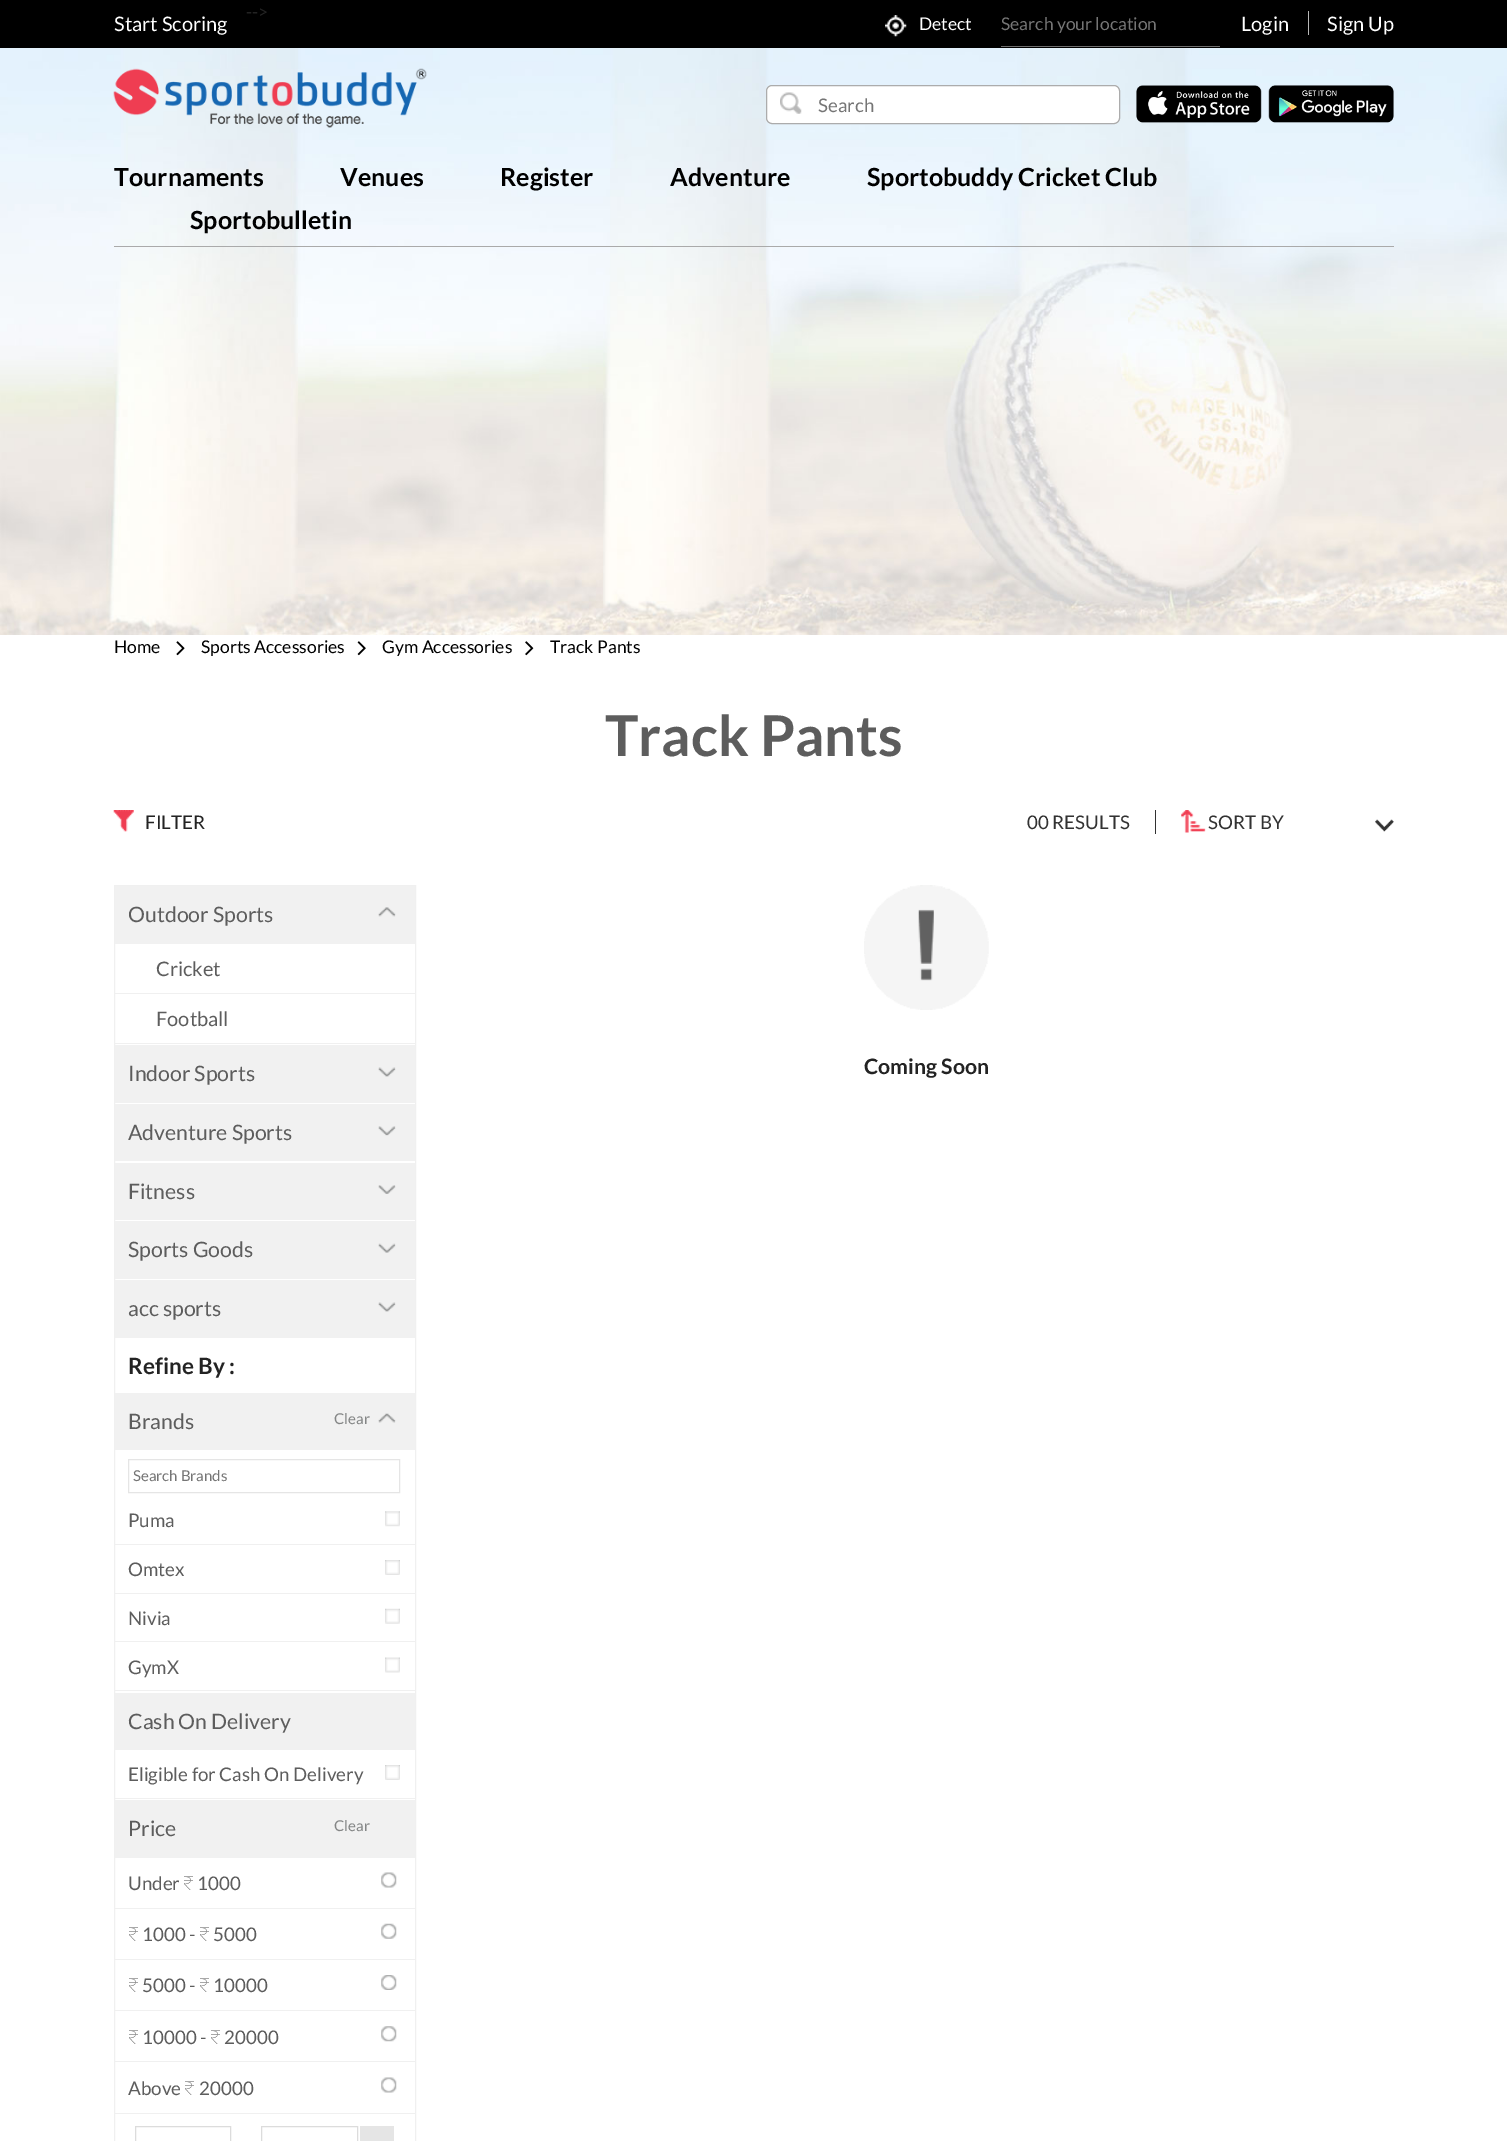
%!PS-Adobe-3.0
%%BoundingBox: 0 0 1507 2141
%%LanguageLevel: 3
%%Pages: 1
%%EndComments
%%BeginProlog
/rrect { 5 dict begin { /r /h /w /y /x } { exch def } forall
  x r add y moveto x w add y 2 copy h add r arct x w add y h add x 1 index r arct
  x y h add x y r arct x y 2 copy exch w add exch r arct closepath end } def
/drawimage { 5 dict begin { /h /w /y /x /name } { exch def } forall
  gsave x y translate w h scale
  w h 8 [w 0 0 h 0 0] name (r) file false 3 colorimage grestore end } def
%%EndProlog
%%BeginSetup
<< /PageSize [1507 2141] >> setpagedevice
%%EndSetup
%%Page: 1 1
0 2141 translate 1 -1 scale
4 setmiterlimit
1 setgray
0 0 1507 2141 rectfill
0 setgray
0 0 1507 48 rectfill
(images/1.raw) 885 15 22 22 drawimage
0.431 setgray
1001 46 219 1 rectfill
0.722 setgray
1308 11 1 24 rectfill
(images/6.raw) 0 48 1507 587 drawimage
(images/2.raw) 113 68 314 60 drawimage
1 setgray
766 85 354 39 6 rrect fill
(images/3.raw) 780 92 22 22 drawimage
0.675 setgray
766.5 85.5 353 38 5.5 rrect stroke
(images/4.raw) 1136 85 126 38 drawimage
(images/5.raw) 1268 85 126 38 drawimage
0.667 setgray
114 246 1280 1 rectfill
(images/7.raw) 176 641 9 15 drawimage
(images/8.raw) 357 641 9 15 drawimage
(images/9.raw) 525 641 9 15 drawimage
(images/10.raw) 113 810 21 22 drawimage
0.196 setgray
1155 810 1 24 rectfill
(images/11.raw) 1181 810 25 23 drawimage
(images/12.raw) 1375 819 19 13 drawimage
0.941 setgray
114.5 885.5 301 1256 rectstroke
0.945 setgray
115 886 300 58 rectfill
(images/13.raw) 378 907 18 10 drawimage
0.941 setgray
115 993 300 1 rectfill
115 1043 300 1 rectfill
0.945 setgray
115 1045 300 58 rectfill
(images/14.raw) 378 1067 18 10 drawimage
115 1104 300 57 rectfill
(images/15.raw) 378 1126 18 10 drawimage
115 1163 300 57 rectfill
(images/16.raw) 378 1185 18 9 drawimage
115 1221 300 58 rectfill
(images/17.raw) 378 1243 18 10 drawimage
115 1280 300 58 rectfill
(images/14.raw) 378 1302 18 10 drawimage
115 1393 300 57 rectfill
(images/18.raw) 378 1413 18 10 drawimage
0.898 setgray
128.5 1459.5 271 33 rectstroke
0.941 setgray
115 1544 300 1 rectfill
(images/19.raw) 385 1511 15 16 drawimage
115 1593 300 1 rectfill
(images/20.raw) 385 1560 15 15 drawimage
115 1641 300 1 rectfill
(images/21.raw) 385 1608 15 16 drawimage
115 1690 300 1 rectfill
(images/22.raw) 385 1657 15 16 drawimage
0.945 setgray
115 1693 300 57 rectfill
0.941 setgray
115 1798 300 1 rectfill
(images/23.raw) 385 1765 15 15 drawimage
0.945 setgray
115 1800 300 58 rectfill
0.941 setgray
115 1908 300 1 rectfill
(images/24.raw) 381 1872 16 16 drawimage
115 1959 300 1 rectfill
(images/25.raw) 381 1923 16 16 drawimage
115 2010 300 1 rectfill
(images/26.raw) 381 1975 16 15 drawimage
115 2061 300 1 rectfill
(images/27.raw) 381 2026 16 16 drawimage
115 2113 300 1 rectfill
(images/24.raw) 381 2077 16 16 drawimage
0.863 setgray
135.5 2126.5 95 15 rectstroke
261.5 2126.5 96 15 rectstroke
0.898 setgray
360 2126 34 15 rectfill
(images/28.raw) 864 885 125 125 drawimage
/Lato-Regular [17.5 0 0 -17.5 0 0] selectfont
0.137 setgray
246 18 moveto (-->) show
/Lato-Regular [20 0 0 -20 0 0] selectfont
1 setgray
114 31 moveto (Start Scoring) show
/Lato-Regular [17.5 0 0 -17.5 0 0] selectfont
919 30 moveto (Detect) show
0.459 setgray
1001 30 moveto (Search your location) show
/Lato-Regular [20 0 0 -20 0 0] selectfont
1 setgray
1241 31 moveto (Login) show
1327 31 moveto (Sign Up) show
/Lato-Regular [18.75 0 0 -18.75 0 0] selectfont
0.459 setgray
818 112 moveto (Search) show
/Lato-Bold [25 0 0 -25 0 0] selectfont
0 setgray
114 186 moveto (Tournaments) show
340 186 moveto (Venues) show
500 186 moveto (Register) show
670 186 moveto (Adventure) show
867 186 moveto (Sportobuddy Cricket Club) show
190 229 moveto (Sportobulletin) show
/Lato-Regular [17.5 0 0 -17.5 0 0] selectfont
114 653 moveto (Home) show
201 653 moveto (Sports Accessories) show
382 653 moveto (Gym Accessories) show
550 653 moveto (Track Pants) show
/Lato-Bold [56.25 0 0 -56.25 0 0] selectfont
0.365 setgray
605 756 moveto (Track Pants) show
/Lato-Regular [18.75 0 0 -18.75 0 0] selectfont
0.137 setgray
145 829 moveto (FILTER) show
0.196 setgray
1027 829 moveto (00 RESULTS) show
1208 829 moveto (SORT BY) show
/Lato-Regular [21.25 0 0 -21.25 0 0] selectfont
0.365 setgray
128 922 moveto (Outdoor Sports) show
/Lato-Regular [20 0 0 -20 0 0] selectfont
156 976 moveto (Cricket) show
156 1026 moveto (Football) show
/Lato-Regular [21.25 0 0 -21.25 0 0] selectfont
128 1081 moveto (Indoor Sports) show
128 1140 moveto (Adventure Sports) show
128 1199 moveto (Fitness) show
128 1257 moveto (Sports Goods) show
128 1316 moveto (acc sports) show
/Lato-Bold [22.5 0 0 -22.5 0 0] selectfont
0.137 setgray
128 1374 moveto (Refine By :) show
/Lato-Regular [21.25 0 0 -21.25 0 0] selectfont
0.365 setgray
128 1429 moveto (Brands) show
/Lato-Regular [15 0 0 -15 0 0] selectfont
0.518 0.525 0.525 setrgbcolor
334 1424 moveto (Clear) show
0.459 setgray
133 1481 moveto (Search Brands) show
/Lato-Regular [18.75 0 0 -18.75 0 0] selectfont
0.365 setgray
128 1527 moveto (Puma) show
128 1576 moveto (Omtex) show
128 1625 moveto (Nivia) show
128 1674 moveto (GymX) show
/Lato-Regular [21.25 0 0 -21.25 0 0] selectfont
128 1729 moveto (Cash On Delivery) show
/Lato-Regular [18.75 0 0 -18.75 0 0] selectfont
128 1781 moveto (Eligible for Cash On Delivery) show
/Lato-Regular [21.25 0 0 -21.25 0 0] selectfont
128 1836 moveto (Price) show
/Lato-Regular [15 0 0 -15 0 0] selectfont
0.518 0.525 0.525 setrgbcolor
334 1831 moveto (Clear) show
/Lato-Regular [18.75 0 0 -18.75 0 0] selectfont
0.365 setgray
128 1890 moveto (Under) show
/NotoSans-Thin [18.75 0 0 -18.75 0 0] selectfont
183 1890 moveto (₹) show
/Lato-Regular [18.75 0 0 -18.75 0 0] selectfont
197 1890 moveto (1000) show
/NotoSans-Thin [18.75 0 0 -18.75 0 0] selectfont
128 1941 moveto (₹) show
/Lato-Regular [18.75 0 0 -18.75 0 0] selectfont
142 1941 moveto (1000 -) show
/NotoSans-Thin [18.75 0 0 -18.75 0 0] selectfont
199 1941 moveto (₹) show
/Lato-Regular [18.75 0 0 -18.75 0 0] selectfont
213 1941 moveto (5000) show
/NotoSans-Thin [18.75 0 0 -18.75 0 0] selectfont
128 1992 moveto (₹) show
/Lato-Regular [18.75 0 0 -18.75 0 0] selectfont
142 1992 moveto (5000 -) show
/NotoSans-Thin [18.75 0 0 -18.75 0 0] selectfont
199 1992 moveto (₹) show
/Lato-Regular [18.75 0 0 -18.75 0 0] selectfont
213 1992 moveto (10000) show
/NotoSans-Thin [18.75 0 0 -18.75 0 0] selectfont
128 2044 moveto (₹) show
/Lato-Regular [18.75 0 0 -18.75 0 0] selectfont
142 2044 moveto (10000 -) show
/NotoSans-Thin [18.75 0 0 -18.75 0 0] selectfont
210 2044 moveto (₹) show
/Lato-Regular [18.75 0 0 -18.75 0 0] selectfont
224 2044 moveto (20000) show
128 2095 moveto (Above) show
/NotoSans-Thin [18.75 0 0 -18.75 0 0] selectfont
184 2095 moveto (₹) show
/Lato-Regular [18.75 0 0 -18.75 0 0] selectfont
199 2095 moveto (20000) show
/Lato-Bold [21.25 0 0 -21.25 0 0] selectfont
0.137 setgray
864 1074 moveto (Coming Soon) show
showpage
%%EOF
